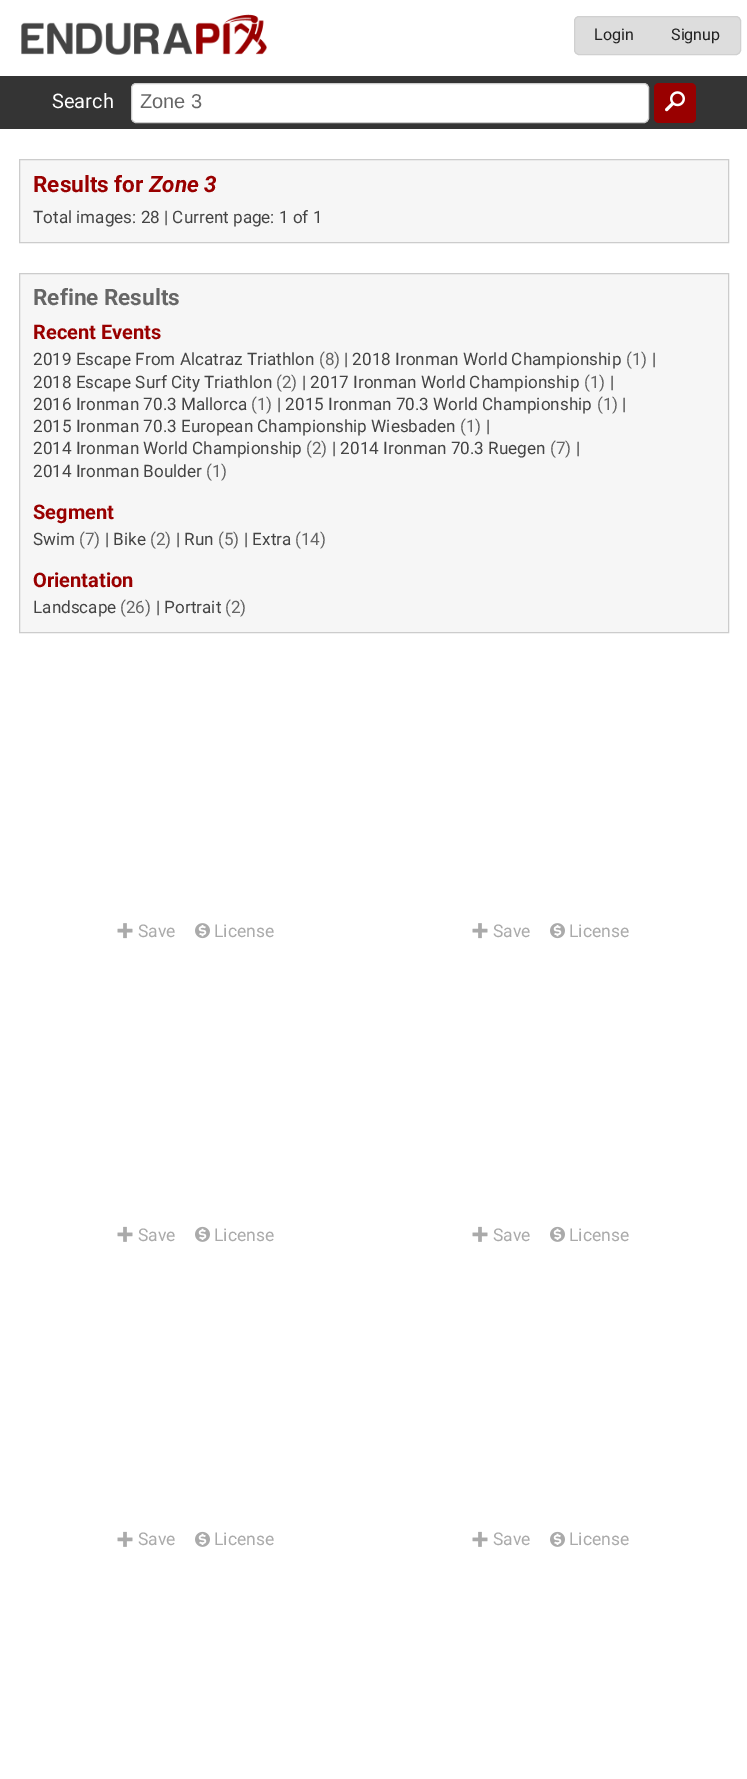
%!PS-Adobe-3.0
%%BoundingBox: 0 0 747 1779
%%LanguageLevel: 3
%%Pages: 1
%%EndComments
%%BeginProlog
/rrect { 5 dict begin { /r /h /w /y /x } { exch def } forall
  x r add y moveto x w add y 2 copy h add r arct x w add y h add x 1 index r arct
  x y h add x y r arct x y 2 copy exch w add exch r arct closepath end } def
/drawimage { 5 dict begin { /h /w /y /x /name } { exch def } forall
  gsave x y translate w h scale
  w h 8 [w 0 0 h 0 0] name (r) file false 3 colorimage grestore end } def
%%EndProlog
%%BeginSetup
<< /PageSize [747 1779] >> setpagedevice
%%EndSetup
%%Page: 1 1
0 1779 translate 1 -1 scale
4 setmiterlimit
1 setgray
0 0 747 1779 rectfill
(images/1.raw) 21 14 246 41 drawimage
0.867 setgray
574.5 16.5 166 38 4.5 rrect gsave fill grestore
0.816 setgray
stroke
0.204 setgray
0 76 747 53 rectfill
1 setgray
131.5 83.5 517 39 4.5 rrect gsave fill grestore
0.8 setgray
stroke
0.6 0 0 setrgbcolor
654 83 42 40 5 rrect fill
(images/2.raw) 665 91 20 21 drawimage
0.965 setgray
newpath 19.5 159.5 moveto 728.5 159.5 lineto 728.5 242.5 lineto 19.5 242.5 lineto closepath gsave fill grestore
0.8 setgray
stroke
0.965 setgray
newpath 19.5 273.5 moveto 728.5 273.5 lineto 728.5 632.5 lineto 19.5 632.5 lineto closepath gsave fill grestore
0.8 setgray
stroke
(images/3.raw) 117 923 16 16 drawimage
(images/4.raw) 195 923 15 16 drawimage
(images/3.raw) 472 923 16 16 drawimage
(images/4.raw) 550 923 15 16 drawimage
(images/5.raw) 117 1226 16 16 drawimage
(images/6.raw) 195 1226 15 16 drawimage
(images/5.raw) 472 1226 16 16 drawimage
(images/6.raw) 550 1226 15 16 drawimage
(images/5.raw) 117 1531 16 16 drawimage
(images/6.raw) 195 1531 15 16 drawimage
(images/5.raw) 472 1531 16 16 drawimage
(images/6.raw) 550 1531 15 16 drawimage
/Roboto-Regular [16 0 0 -16 0 0] selectfont
0.133 setgray
594 40 moveto (Login) show
671 40 moveto (Signup) show
/Roboto-Regular [20 0 0 -20 0 0] selectfont
1 setgray
52 108 moveto (Search) show
/LiberationSans-Regular [20 0 0 -20 0 0] selectfont
0.4 setgray
140 108 moveto (Zone 3) show
/Roboto-Bold [22.5 0 0 -22.5 0 0] selectfont
0.6 0 0 setrgbcolor
33 192 moveto (Results for) show
/Roboto-BoldItalic [22.5 0 0 -22.5 0 0] selectfont
149 192 moveto (Zone 3) show
/Roboto-Regular [17.1 0 0 -17.1 0 0] selectfont
0.267 setgray
33 223 moveto (Total images: 28 | Current page: 1 of 1) show
/Roboto-Bold [22.5 0 0 -22.5 0 0] selectfont
0.4 setgray
33 305 moveto (Refine Results) show
/Roboto-Bold [20 0 0 -20 0 0] selectfont
0.6 0 0 setrgbcolor
33 339 moveto (Recent Events) show
/Roboto-Regular [17.1 0 0 -17.1 0 0] selectfont
0.267 setgray
33 365 moveto (2019 Escape From Alcatraz Triathlon) show
0.4 setgray
319 365 moveto (\(8\)) show
0.267 setgray
344 365 moveto (| 2018 Ironman World Championship) show
0.4 setgray
626 365 moveto (\(1\)) show
0.267 setgray
652 365 moveto (|) show
33 388 moveto (2018 Escape Surf City Triathlon) show
0.4 setgray
276 388 moveto (\(2\)) show
0.267 setgray
302 388 moveto (| 2017 Ironman World Championship) show
0.4 setgray
584 388 moveto (\(1\)) show
0.267 setgray
610 388 moveto (|) show
33 410 moveto (2016 Ironman 70.3 Mallorca) show
0.4 setgray
251 410 moveto (\(1\)) show
0.267 setgray
277 410 moveto (| 2015 Ironman 70.3 World Championship) show
0.4 setgray
597 410 moveto (\(1\)) show
0.267 setgray
622 410 moveto (|) show
33 432 moveto (2015 Ironman 70.3 European Championship Wiesbaden) show
0.4 setgray
460 432 moveto (\(1\)) show
0.267 setgray
486 432 moveto (|) show
33 454 moveto (2014 Ironman World Championship) show
0.4 setgray
306 454 moveto (\(2\)) show
0.267 setgray
332 454 moveto (| 2014 Ironman 70.3 Ruegen) show
0.4 setgray
550 454 moveto (\(7\)) show
0.267 setgray
576 454 moveto (|) show
33 477 moveto (2014 Ironman Boulder) show
0.4 setgray
206 477 moveto (\(1\)) show
/Roboto-Bold [20 0 0 -20 0 0] selectfont
0.6 0 0 setrgbcolor
33 519 moveto (Segment) show
/Roboto-Regular [17.1 0 0 -17.1 0 0] selectfont
0.267 setgray
33 545 moveto (Swim) show
0.4 setgray
79 545 moveto (\(7\)) show
0.267 setgray
105 545 moveto (| Bike) show
0.4 setgray
150 545 moveto (\(2\)) show
0.267 setgray
176 545 moveto (| Run) show
0.4 setgray
218 545 moveto (\(5\)) show
0.267 setgray
244 545 moveto (| Extra) show
0.4 setgray
295 545 moveto (\(14\)) show
/Roboto-Bold [20 0 0 -20 0 0] selectfont
0.6 0 0 setrgbcolor
33 587 moveto (Orientation) show
/Roboto-Regular [17.1 0 0 -17.1 0 0] selectfont
0.267 setgray
33 613 moveto (Landscape) show
0.4 setgray
120 613 moveto (\(26\)) show
0.267 setgray
156 613 moveto (| Portrait) show
0.4 setgray
225 613 moveto (\(2\)) show
/Roboto-Regular [17.5 0 0 -17.5 0 0] selectfont
0.667 setgray
138 937 moveto (Save) show
214 937 moveto (License) show
493 937 moveto (Save) show
569 937 moveto (License) show
138 1241 moveto (Save) show
214 1241 moveto (License) show
493 1241 moveto (Save) show
569 1241 moveto (License) show
138 1545 moveto (Save) show
214 1545 moveto (License) show
493 1545 moveto (Save) show
569 1545 moveto (License) show
showpage
%%EOF
